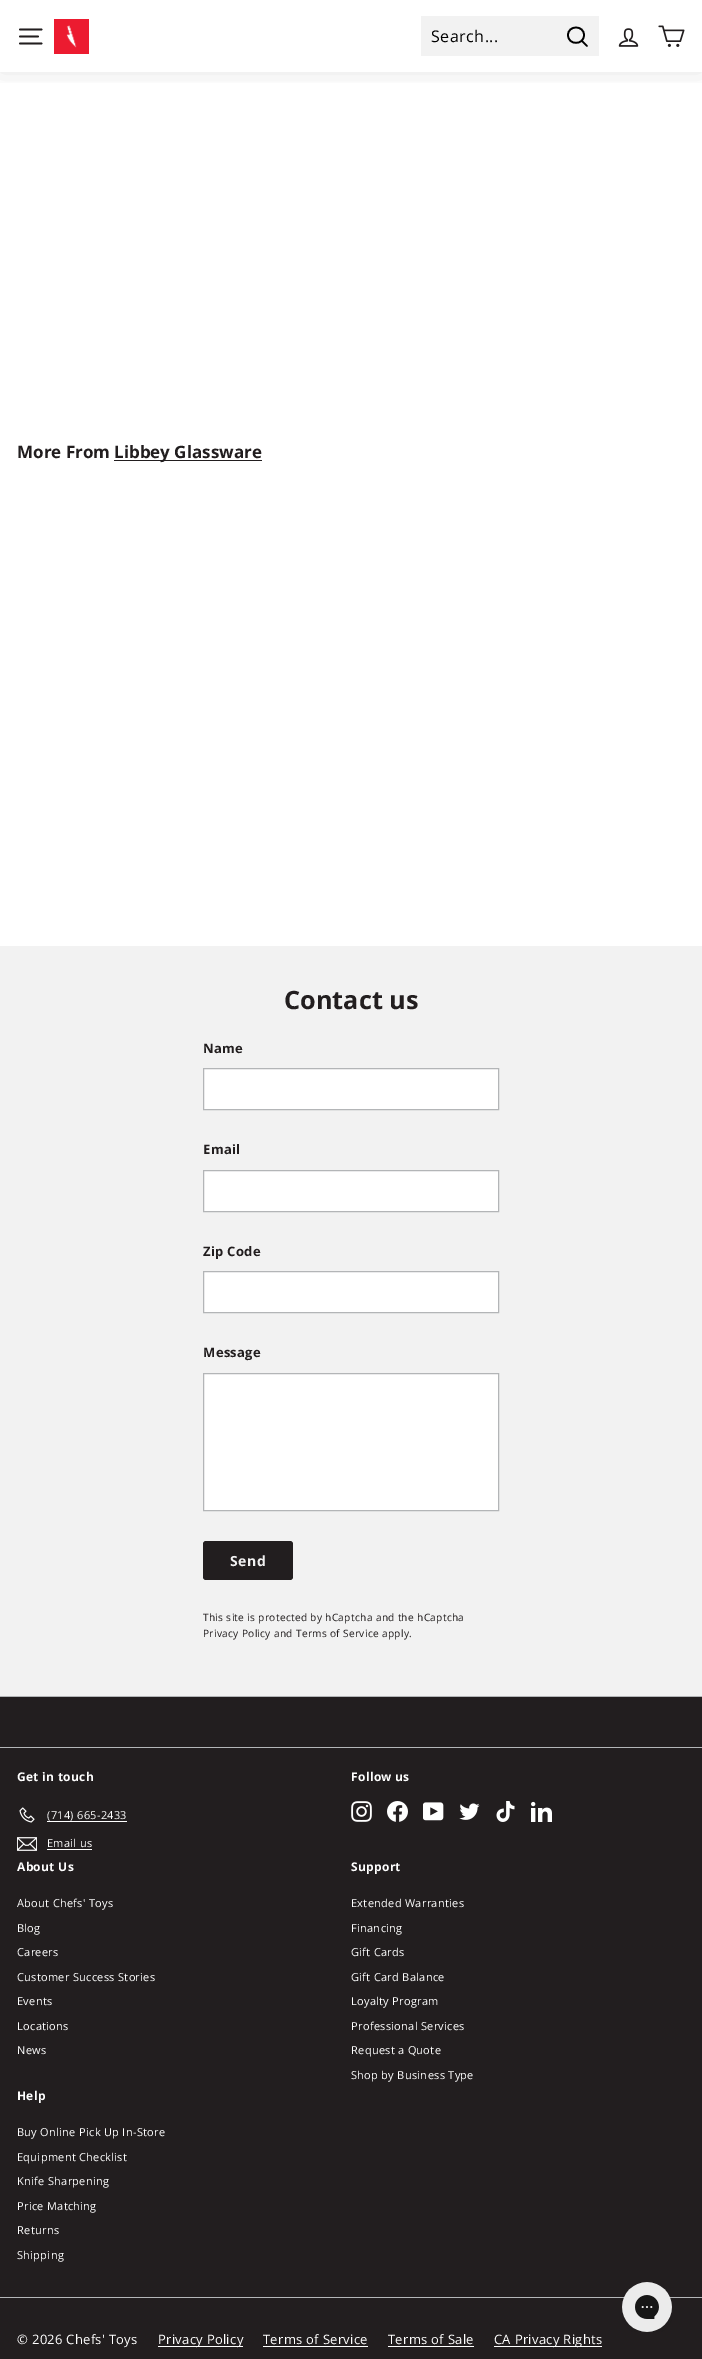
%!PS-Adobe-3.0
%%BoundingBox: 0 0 702 2359
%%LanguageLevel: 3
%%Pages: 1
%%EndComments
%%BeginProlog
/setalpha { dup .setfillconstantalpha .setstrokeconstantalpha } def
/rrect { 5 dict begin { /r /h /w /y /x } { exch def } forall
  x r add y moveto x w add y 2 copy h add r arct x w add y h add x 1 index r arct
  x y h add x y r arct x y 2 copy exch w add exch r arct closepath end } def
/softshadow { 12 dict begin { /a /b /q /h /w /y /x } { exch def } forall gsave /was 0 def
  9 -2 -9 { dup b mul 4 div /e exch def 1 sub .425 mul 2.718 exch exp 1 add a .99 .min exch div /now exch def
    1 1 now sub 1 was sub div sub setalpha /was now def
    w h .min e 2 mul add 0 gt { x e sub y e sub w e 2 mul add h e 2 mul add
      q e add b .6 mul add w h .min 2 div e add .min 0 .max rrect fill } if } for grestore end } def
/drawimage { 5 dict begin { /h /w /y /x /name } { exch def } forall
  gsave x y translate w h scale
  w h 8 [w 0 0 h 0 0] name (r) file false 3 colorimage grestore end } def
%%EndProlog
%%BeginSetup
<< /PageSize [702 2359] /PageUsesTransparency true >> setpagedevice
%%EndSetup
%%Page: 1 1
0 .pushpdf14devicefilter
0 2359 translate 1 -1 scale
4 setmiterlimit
1 setgray
0 0 702 2359 rectfill
gsave
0 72 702 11 rectclip
0 setgray
0 0 702 72 0 12.5 0.1 softshadow
grestore
0.133 0.118 0.122 setrgbcolor
1.7 setlinewidth
1 setlinecap
1 setlinejoin
newpath 20 29.5 moveto 41.5 29.5 lineto 20 36.5 moveto 38 36.5 lineto 20 43.5 moveto 41.5 43.5 lineto stroke
(images/1.raw) 54 19 35 35 drawimage
0.949 setgray
421 16 178 40 rectfill
0 setgray
newpath 584 35 moveto 584 45.5 568 45.5 568 35 curveto 568 25 584 25 584 35 curveto closepath 587 46 moveto 581.5 40.5 lineto stroke
(images/2.raw) 618 28 21 19 drawimage
(images/3.raw) 658 25 27 22 drawimage
0.133 0.118 0.122 setrgbcolor
114 460 148 1 rectfill
0.949 setgray
0 946 702 750 rectfill
1 setgray
newpath 203.5 1068.5 moveto 498.5 1068.5 lineto 498.5 1109.5 lineto 203.5 1109.5 lineto closepath gsave fill grestore
0.702 0.71 0.718 setrgbcolor
1 setlinewidth
0 setlinecap
0 setlinejoin
stroke
1 setgray
newpath 203.5 1170.5 moveto 498.5 1170.5 lineto 498.5 1211.5 lineto 203.5 1211.5 lineto closepath gsave fill grestore
0.702 0.71 0.718 setrgbcolor
stroke
1 setgray
newpath 203.5 1271.5 moveto 498.5 1271.5 lineto 498.5 1312.5 lineto 203.5 1312.5 lineto closepath gsave fill grestore
0.702 0.71 0.718 setrgbcolor
stroke
1 setgray
newpath 203.5 1373.5 moveto 498.5 1373.5 lineto 498.5 1510.5 lineto 203.5 1510.5 lineto closepath gsave fill grestore
0.702 0.71 0.718 setrgbcolor
stroke
0.133 0.118 0.122 setrgbcolor
203 1541 90 39 3 rrect fill
0 1697 702 662 rectfill
0.702 0.71 0.718 setrgbcolor
0 1696 702 1 rectfill
0 1747 702 1 rectfill
(images/4.raw) 19 1807 16 16 drawimage
1 setgray
47 1821 80 1 rectfill
(images/5.raw) 17 1837 20 14 drawimage
47 1849 45 1 rectfill
(images/6.raw) 351 1801 21 21 drawimage
(images/7.raw) 387 1801 21 21 drawimage
(images/8.raw) 423 1802 21 19 drawimage
(images/9.raw) 459 1803 21 17 drawimage
(images/10.raw) 496 1801 19 21 drawimage
(images/11.raw) 531 1801 21 21 drawimage
0.702 0.71 0.718 setrgbcolor
0 2297 702 1 rectfill
1 setgray
158 2346 85 1 rectfill
263 2346 105 1 rectfill
388 2346 86 1 rectfill
494 2346 108 1 rectfill
(images/12.raw) 622 2282 50 50 drawimage
/OpenSans-Regular [16 0 0 -16 0 0] selectfont
0 setgray
431 42 moveto 0.5 0 (Search...) ashow
/OpenSans-Bold [17 0 0 -17 0 0] selectfont
0.133 0.118 0.122 setrgbcolor
17 458 moveto (More From) show
114 458 moveto (Libbey Glassware) show
/OpenSans-Bold [25.25 0 0 -25.25 0 0] selectfont
284 1009 moveto (Contact us) show
/OpenSans-Bold [13 0 0 -13 0 0] selectfont
203 1053 moveto 0.3 0 (Name) ashow
203 1154 moveto 0.3 0 (Email) ashow
203 1256 moveto 0.3 0 (Zip Code) ashow
203 1357 moveto 0.3 0 (Message) ashow
/OpenSans-Bold [14 0 0 -14 0 0] selectfont
0.949 setgray
230 1566 moveto 0.5 0 (Send) ashow
/OpenSans-Regular [10.2 0 0 -10.2 0 0] selectfont
0.133 0.118 0.122 setrgbcolor
203 1621 moveto 0.3 0 (This site is protected by hCaptcha and the hCaptcha) ashow
203 1637 moveto 0.3 0 (Privacy Policy and Terms of Service apply.) ashow
/OpenSans-Bold [12 0 0 -12 0 0] selectfont
1 setgray
17 1781 moveto 0.3 0 (Get in touch) ashow
/OpenSans-Regular [11 0 0 -11 0 0] selectfont
47 1819 moveto 0.3 0 (\(714\) 665-2433) ashow
47 1847 moveto 0.3 0 (Email us) ashow
/OpenSans-Bold [12 0 0 -12 0 0] selectfont
351 1781 moveto 0.3 0 (Follow us) ashow
17 1871 moveto 0.3 0 (About Us) ashow
/OpenSans-Regular [11 0 0 -11 0 0] selectfont
17 1907 moveto 0.3 0 (About Chefs' Toys) ashow
17 1932 moveto 0.3 0 (Blog) ashow
17 1956 moveto 0.3 0 (Careers) ashow
17 1981 moveto 0.3 0 (Customer Success Stories) ashow
17 2005 moveto 0.3 0 (Events) ashow
17 2030 moveto 0.3 0 (Locations) ashow
17 2054 moveto 0.3 0 (News) ashow
/OpenSans-Bold [12 0 0 -12 0 0] selectfont
351 1871 moveto 0.3 0 (Support) ashow
/OpenSans-Regular [11 0 0 -11 0 0] selectfont
351 1907 moveto 0.3 0 (Extended Warranties) ashow
351 1932 moveto 0.3 0 (Financing) ashow
351 1956 moveto 0.3 0 (Gift Cards) ashow
351 1981 moveto 0.3 0 (Gift Card Balance) ashow
351 2005 moveto 0.3 0 (Loyalty Program) ashow
351 2030 moveto 0.3 0 (Professional Services) ashow
351 2054 moveto 0.3 0 (Request a Quote) ashow
351 2079 moveto 0.3 0 (Shop by Business Type) ashow
/OpenSans-Bold [12 0 0 -12 0 0] selectfont
17 2100 moveto 0.3 0 (Help) ashow
/OpenSans-Regular [11 0 0 -11 0 0] selectfont
17 2136 moveto 0.3 0 (Buy Online Pick Up In-Store) ashow
17 2161 moveto 0.3 0 (Equipment Checklist) ashow
17 2185 moveto 0.3 0 (Knife Sharpening) ashow
17 2210 moveto 0.3 0 (Price Matching) ashow
17 2234 moveto 0.3 0 (Returns) ashow
17 2259 moveto 0.3 0 (Shipping) ashow
/OpenSans-Regular [13 0 0 -13 0 0] selectfont
17 2344 moveto 0.3 0 (© 2026 Chefs' Toys) ashow
158 2344 moveto 0.3 0 (Privacy Policy) ashow
263 2344 moveto 0.3 0 (Terms of Service) ashow
388 2344 moveto 0.3 0 (Terms of Sale) ashow
494 2344 moveto 0.3 0 (CA Privacy Rights) ashow
.poppdf14devicefilter showpage
%%EOF
